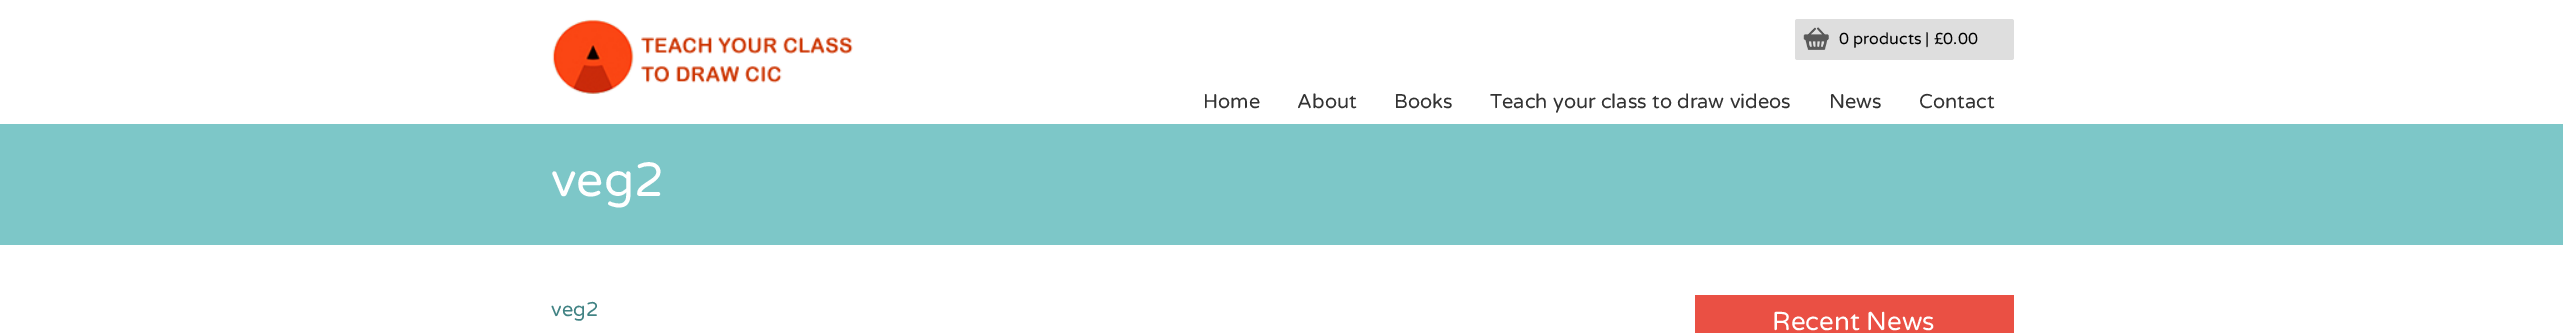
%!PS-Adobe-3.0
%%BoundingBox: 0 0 2563 333
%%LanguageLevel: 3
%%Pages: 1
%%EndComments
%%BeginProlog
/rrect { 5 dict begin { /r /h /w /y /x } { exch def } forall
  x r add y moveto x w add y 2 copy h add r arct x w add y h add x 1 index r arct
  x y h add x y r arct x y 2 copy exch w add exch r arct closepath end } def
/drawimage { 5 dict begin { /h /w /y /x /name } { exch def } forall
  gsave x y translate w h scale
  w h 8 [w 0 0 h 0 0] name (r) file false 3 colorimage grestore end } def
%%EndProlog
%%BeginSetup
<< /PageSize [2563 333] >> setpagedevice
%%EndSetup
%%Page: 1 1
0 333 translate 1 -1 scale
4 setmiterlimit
1 setgray
0 0 2563 333 rectfill
(images/1.raw) 552 19 301 75 drawimage
0.871 setgray
1795 19 219 41 2.5 rrect fill
(images/2.raw) 1803 27 26 23 drawimage
0.49 0.78 0.784 setrgbcolor
0 124 2563 121 rectfill
0.918 0.314 0.267 setrgbcolor
1695 295 319 38 rectfill
/VarelaRound-Regular [16 0 0 -16 0 0] selectfont
0 setgray
1839 44 moveto (0 products | £0.00) show
/VarelaRound-Regular [20 0 0 -20 0 0] selectfont
0.2 setgray
1203 108 moveto (Home) show
1297 108 moveto (About) show
1394 108 moveto (Books) show
1490 108 moveto (Teach your class to draw videos) show
1829 108 moveto (News) show
1919 108 moveto (Contact) show
/VarelaRound-Regular [48 0 0 -48 0 0] selectfont
1 setgray
551 196 moveto (veg2) show
/VarelaRound-Regular [20 0 0 -20 0 0] selectfont
0.255 0.514 0.518 setrgbcolor
551 316 moveto (veg2) show
/VarelaRound-Regular [26 0 0 -26 0 0] selectfont
1 setgray
1772 330 moveto (Recent News) show
showpage
%%EOF
